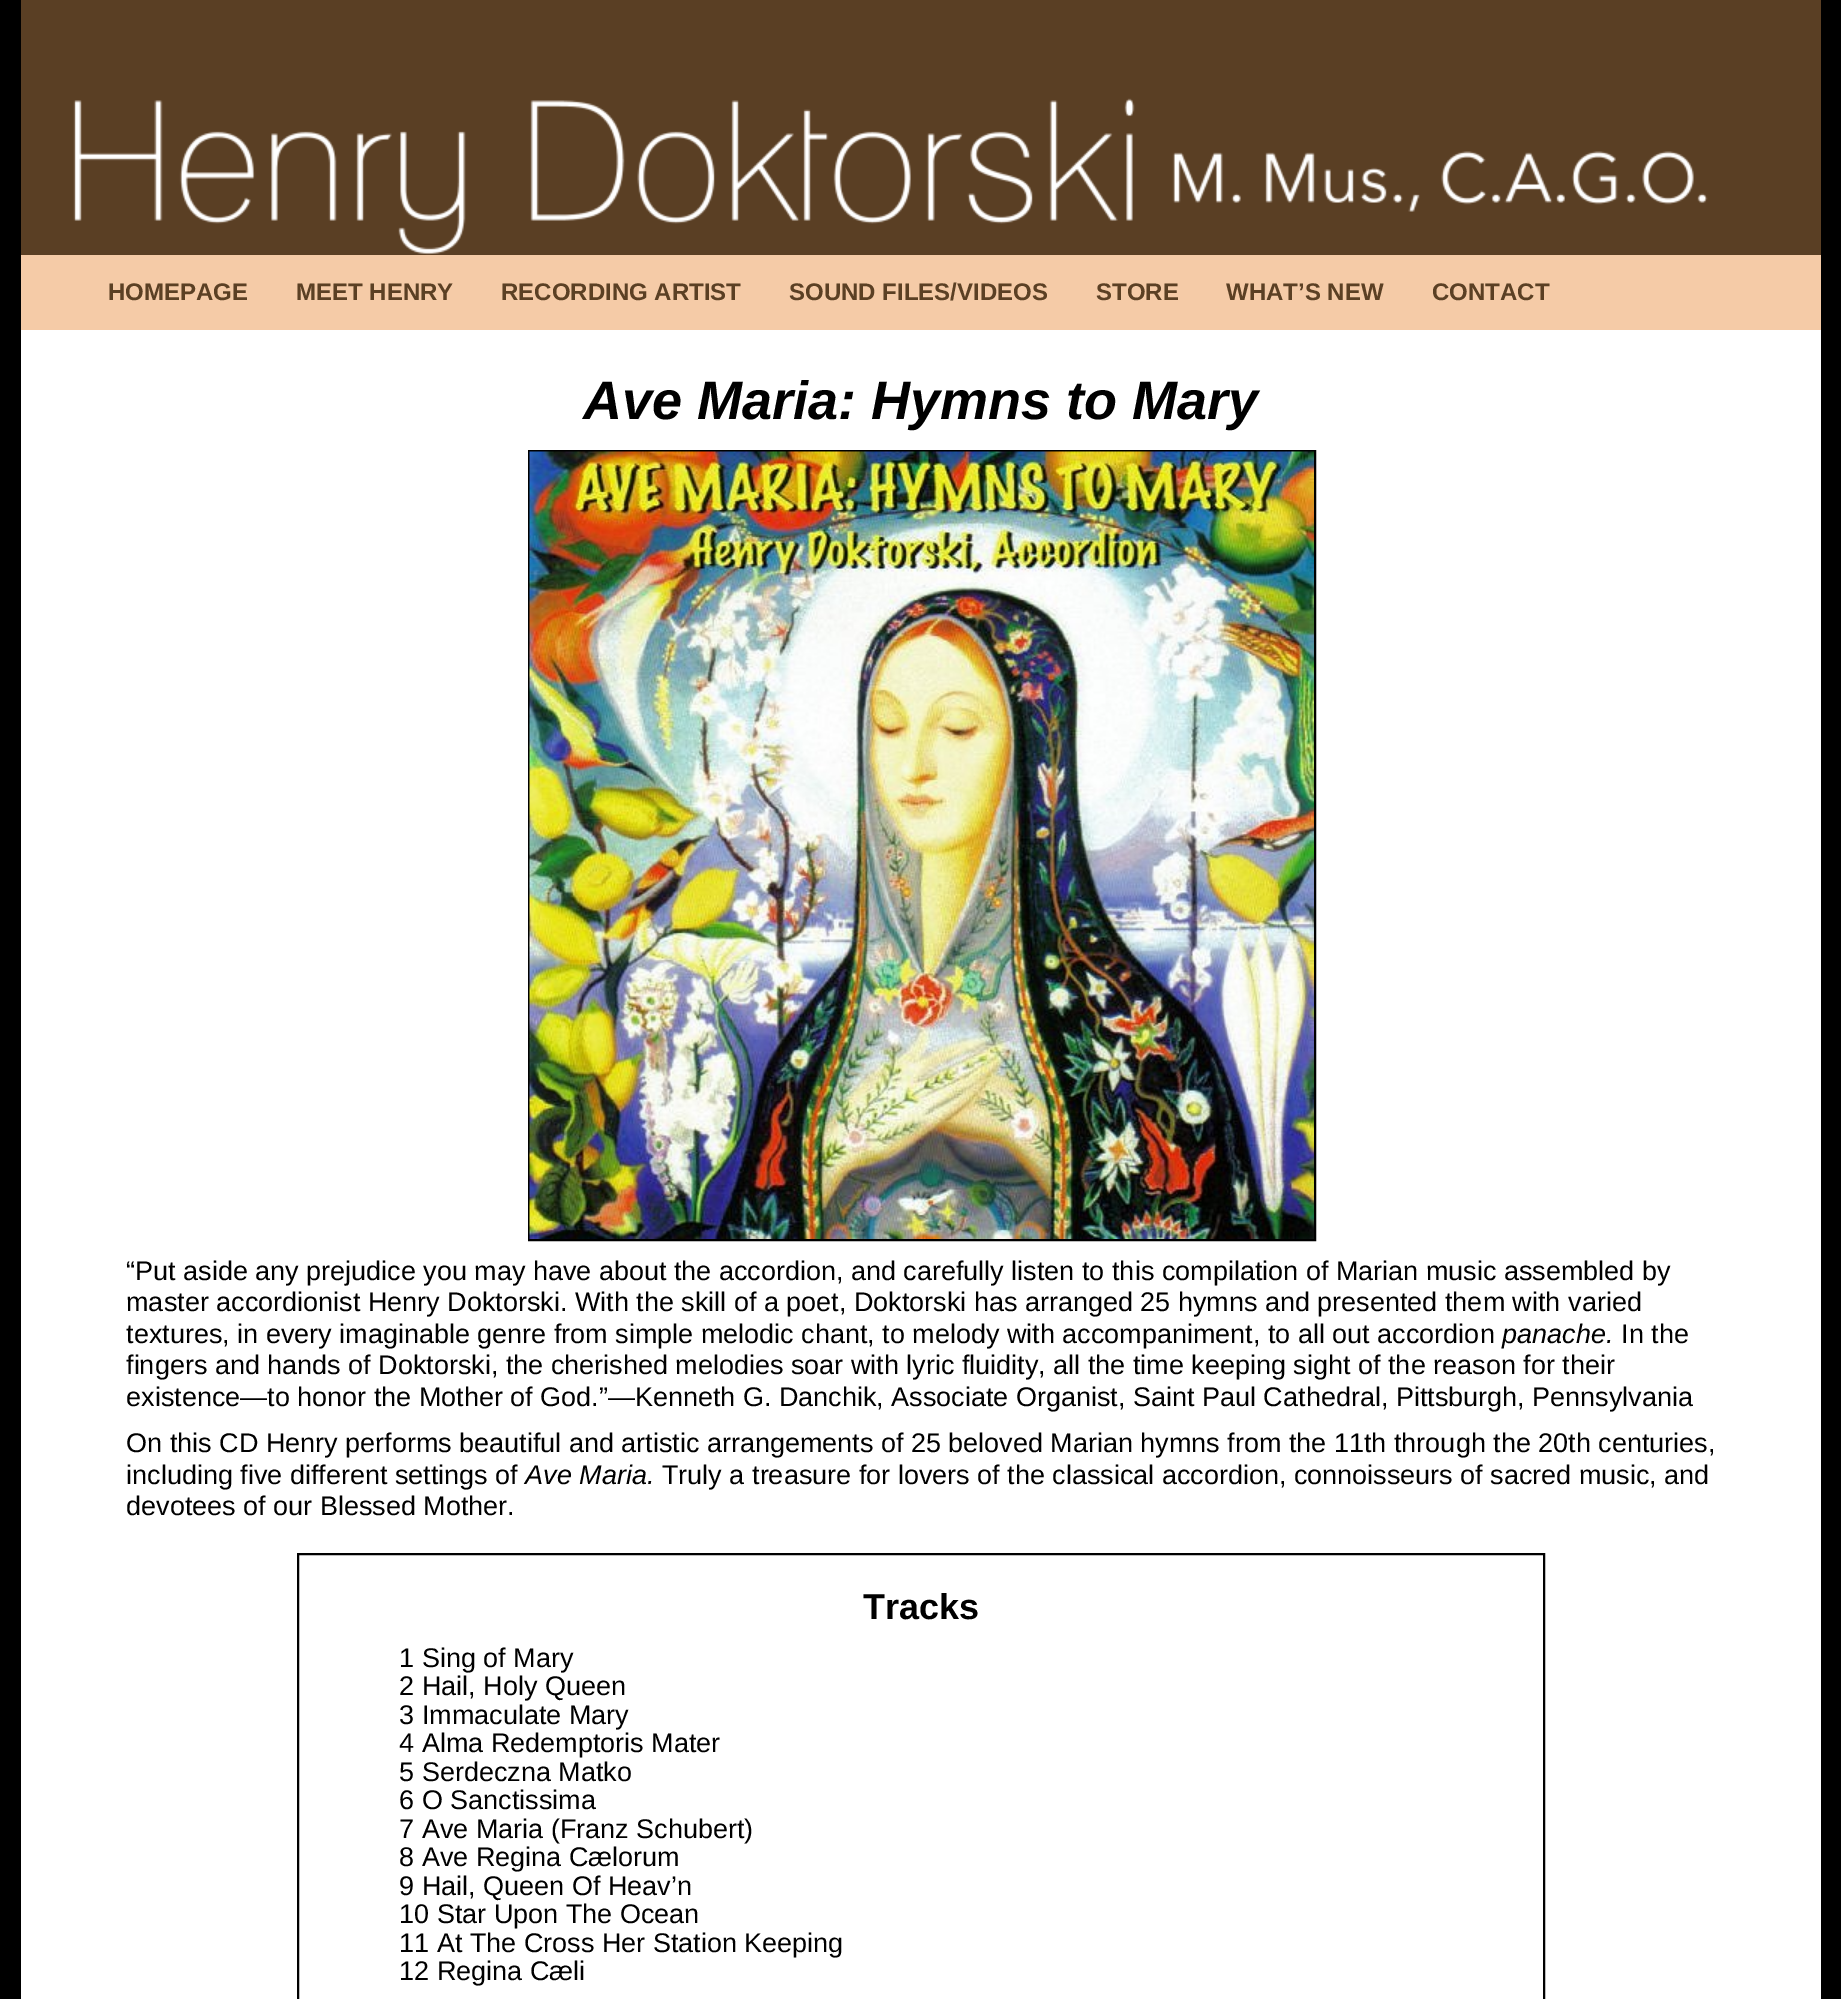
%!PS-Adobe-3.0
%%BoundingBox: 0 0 1841 1999
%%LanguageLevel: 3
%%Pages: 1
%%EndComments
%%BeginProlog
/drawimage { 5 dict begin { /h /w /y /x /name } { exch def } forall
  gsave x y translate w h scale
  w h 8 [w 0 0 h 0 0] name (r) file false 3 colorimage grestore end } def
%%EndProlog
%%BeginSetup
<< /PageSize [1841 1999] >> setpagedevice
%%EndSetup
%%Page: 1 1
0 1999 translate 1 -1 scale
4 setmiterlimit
0 setgray
0 0 1841 1999 rectfill
(images/1.raw) 21 0 1800 255 drawimage
0.961 0.796 0.655 setrgbcolor
21 255 1800 75 rectfill
1 setgray
21 330 1800 1669 rectfill
0 setgray
2 setlinewidth
529 451 786 789 rectstroke
(images/2.raw) 529 451 785 788 drawimage
298 1554 1246 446 rectstroke
/LiberationSans-Bold [24 0 0 -24 0 0] selectfont
0.357 0.251 0.141 setrgbcolor
108 300 moveto (HOMEPAGE) show
296 300 moveto (MEET HENRY) show
501 300 moveto (RECORDING ARTIST) show
789 300 moveto (SOUND FILES/VIDEOS) show
1096 300 moveto (STORE) show
1226 300 moveto (WHAT’S NEW) show
1432 300 moveto (CONTACT) show
/LiberationSans-BoldItalic [54 0 0 -54 0 0] selectfont
0 setgray
583 419 moveto (Ave Maria: Hymns to Mary) show
/LiberationSans-Regular [27 0 0 -27 0 0] selectfont
126 1280 moveto (“Put aside any prejudice you may have about the accordion, and carefully listen to this compilation of Marian music assembled by) show
126 1311 moveto (master accordionist Henry Doktorski. With the skill of a poet, Doktorski has arranged 25 hymns and presented them with varied) show
126 1343 moveto (textures, in every imaginable genre from simple melodic chant, to melody with accompaniment, to all out accordion) show
/LiberationSans-Italic [27 0 0 -27 0 0] selectfont
1502 1343 moveto (panache.) show
/LiberationSans-Regular [27 0 0 -27 0 0] selectfont
1621 1343 moveto (In the) show
126 1374 moveto (fingers and hands of Doktorski, the cherished melodies soar with lyric fluidity, all the time keeping sight of the reason for their) show
126 1406 moveto (existence—to honor the Mother of God.”—Kenneth G. Danchik, Associate Organist, Saint Paul Cathedral, Pittsburgh, Pennsylvania) show
126 1452 moveto (On this CD Henry performs beautiful and artistic arrangements of 25 beloved Marian hymns from the 11th through the 20th centuries,) show
126 1484 moveto (including five different settings of) show
/LiberationSans-Italic [27 0 0 -27 0 0] selectfont
525 1484 moveto (Ave Maria.) show
/LiberationSans-Regular [27 0 0 -27 0 0] selectfont
662 1484 moveto (Truly a treasure for lovers of the classical accordion, connoisseurs of sacred music, and) show
126 1515 moveto (devotees of our Blessed Mother.) show
/LiberationSans-Bold [36 0 0 -36 0 0] selectfont
863 1619 moveto (Tracks) show
/LiberationSans-Regular [27 0 0 -27 0 0] selectfont
399 1667 moveto (1 Sing of Mary) show
399 1695 moveto (2 Hail, Holy Queen) show
399 1724 moveto (3 Immaculate Mary) show
399 1752 moveto (4 Alma Redemptoris Mater) show
399 1781 moveto (5 Serdeczna Matko) show
399 1809 moveto (6 O Sanctissima) show
399 1838 moveto (7 Ave Maria \(Franz Schubert\)) show
399 1866 moveto (8 Ave Regina Cælorum) show
399 1895 moveto (9 Hail, Queen Of Heav’n) show
399 1923 moveto (10 Star Upon The Ocean) show
399 1952 moveto (11 At The Cross Her Station Keeping) show
399 1980 moveto (12 Regina Cæli) show
showpage
%%EOF
